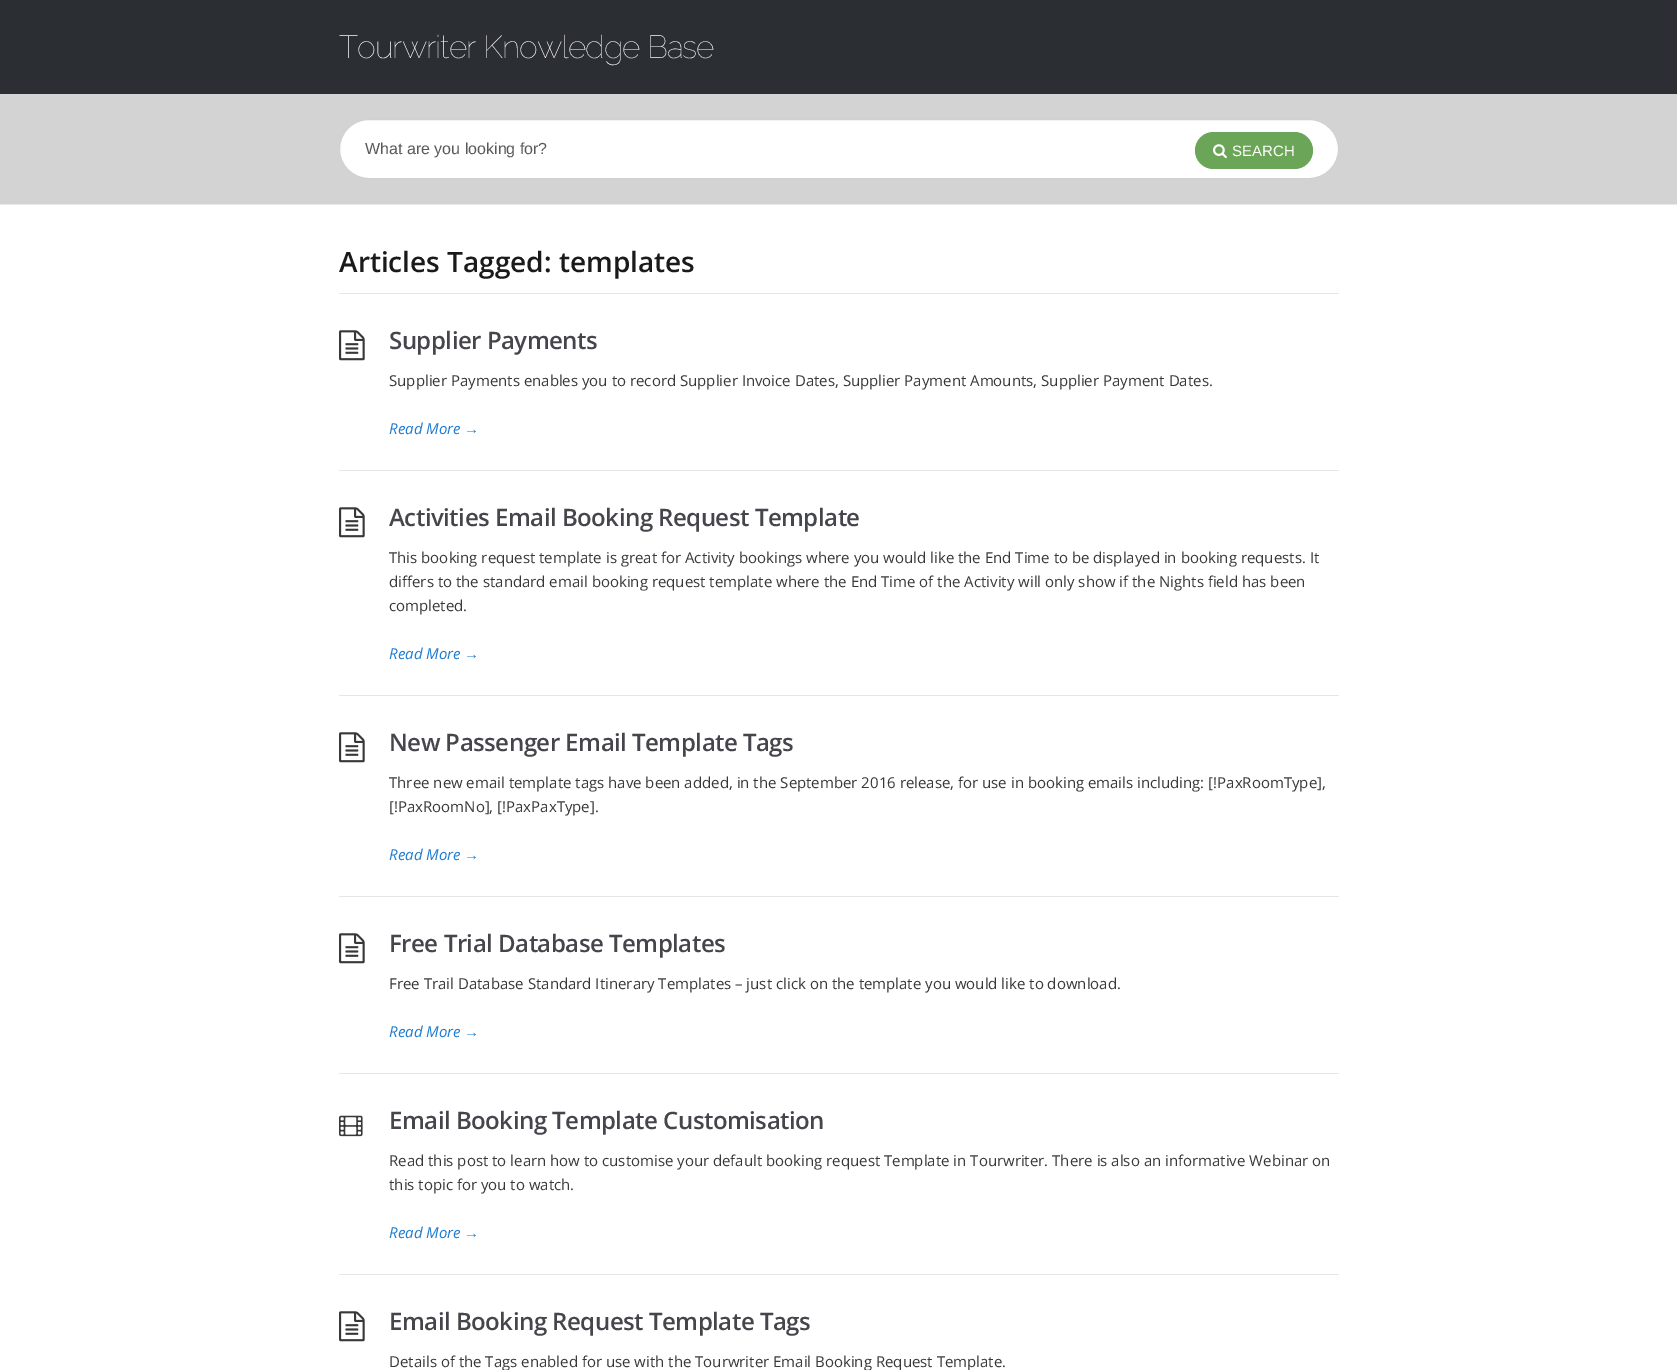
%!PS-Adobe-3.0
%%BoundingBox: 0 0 1677 1370
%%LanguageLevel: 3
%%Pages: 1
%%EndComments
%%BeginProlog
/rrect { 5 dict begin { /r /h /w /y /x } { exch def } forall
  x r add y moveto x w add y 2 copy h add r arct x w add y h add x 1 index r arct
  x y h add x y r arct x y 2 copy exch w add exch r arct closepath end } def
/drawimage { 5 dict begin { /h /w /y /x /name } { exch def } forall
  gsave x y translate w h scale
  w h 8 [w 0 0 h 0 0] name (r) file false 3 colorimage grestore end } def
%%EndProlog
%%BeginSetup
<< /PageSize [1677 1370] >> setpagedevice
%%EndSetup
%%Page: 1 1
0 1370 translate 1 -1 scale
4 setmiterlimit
1 setgray
0 0 1677 1370 rectfill
0.169 0.184 0.2 setrgbcolor
0 0 1677 94 rectfill
0.827 setgray
0 94 1677 110 rectfill
0.91 setgray
0 204 1677 1 rectfill
1 setgray
339.5 119.5 999 59 29.5 rrect gsave fill grestore
0.82 setgray
stroke
0.42 0.647 0.341 setrgbcolor
1195 132 118 37 18.5 rrect fill
(images/1.raw) 1213 144 14 15 drawimage
0.902 setgray
339 293 1000 1 rectfill
339 470 1000 1 rectfill
(images/2.raw) 339 330 26 31 drawimage
339 695 1000 1 rectfill
(images/2.raw) 339 507 26 31 drawimage
339 896 1000 1 rectfill
(images/2.raw) 339 732 26 31 drawimage
339 1073 1000 1 rectfill
(images/2.raw) 339 933 26 31 drawimage
339 1274 1000 1 rectfill
(images/3.raw) 339 1115 24 22 drawimage
(images/2.raw) 339 1311 26 31 drawimage
/Raleway-Thin [32 0 0 -32 0 0] selectfont
1 setgray
339 58 moveto -1 0 (Tourwriter Knowledge Base) ashow
/LiberationSans-Regular [16 0 0 -16 0 0] selectfont
0.349 setgray
365 154 moveto (What are you looking for?) show
/LiberationSans-Regular [15 0 0 -15 0 0] selectfont
1 setgray
1232 156 moveto (SEARCH) show
/OpenSans-SemiBold [28 0 0 -28 0 0] selectfont
0.102 setgray
339 272 moveto (Articles Tagged: templates) show
/OpenSans-SemiBold [24 0 0 -24 0 0] selectfont
0.271 0.271 0.298 setrgbcolor
389 349 moveto -0.5 0 (Supplier Payments) ashow
/OpenSans-Regular [15 0 0 -15 0 0] selectfont
0.22 setgray
389 386 moveto (Supplier Payments enables you to record Supplier Invoice Dates, Supplier Payment Amounts, Supplier Payment Dates.) show
/OpenSans-Italic [15 0 0 -15 0 0] selectfont
0.11 0.482 0.808 setrgbcolor
389 434 moveto (Read More) show
/LiberationSans-Italic [15 0 0 -15 0 0] selectfont
464 434 moveto (→) show
/OpenSans-SemiBold [24 0 0 -24 0 0] selectfont
0.271 0.271 0.298 setrgbcolor
389 526 moveto -0.5 0 (Activities Email Booking Request Template) ashow
/OpenSans-Regular [15 0 0 -15 0 0] selectfont
0.22 setgray
389 563 moveto (This booking request template is great for Activity bookings where you would like the End Time to be displayed in booking requests. It) show
389 587 moveto (differs to the standard email booking request template where the End Time of the Activity will only show if the Nights field has been) show
389 611 moveto (completed.) show
/OpenSans-Italic [15 0 0 -15 0 0] selectfont
0.11 0.482 0.808 setrgbcolor
389 659 moveto (Read More) show
/LiberationSans-Italic [15 0 0 -15 0 0] selectfont
464 659 moveto (→) show
/OpenSans-SemiBold [24 0 0 -24 0 0] selectfont
0.271 0.271 0.298 setrgbcolor
389 751 moveto -0.5 0 (New Passenger Email Template Tags) ashow
/OpenSans-Regular [15 0 0 -15 0 0] selectfont
0.22 setgray
389 788 moveto (Three new email template tags have been added, in the September 2016 release, for use in booking emails including: [!PaxRoomType],) show
389 812 moveto ([!PaxRoomNo], [!PaxPaxType].) show
/OpenSans-Italic [15 0 0 -15 0 0] selectfont
0.11 0.482 0.808 setrgbcolor
389 860 moveto (Read More) show
/LiberationSans-Italic [15 0 0 -15 0 0] selectfont
464 860 moveto (→) show
/OpenSans-SemiBold [24 0 0 -24 0 0] selectfont
0.271 0.271 0.298 setrgbcolor
389 952 moveto -0.5 0 (Free Trial Database Templates) ashow
/OpenSans-Regular [15 0 0 -15 0 0] selectfont
0.22 setgray
389 989 moveto (Free Trail Database Standard Itinerary Templates – just click on the template you would like to download.) show
/OpenSans-Italic [15 0 0 -15 0 0] selectfont
0.11 0.482 0.808 setrgbcolor
389 1037 moveto (Read More) show
/LiberationSans-Italic [15 0 0 -15 0 0] selectfont
464 1037 moveto (→) show
/OpenSans-SemiBold [24 0 0 -24 0 0] selectfont
0.271 0.271 0.298 setrgbcolor
389 1129 moveto -0.5 0 (Email Booking Template Customisation) ashow
/OpenSans-Regular [15 0 0 -15 0 0] selectfont
0.22 setgray
389 1166 moveto (Read this post to learn how to customise your default booking request Template in Tourwriter. There is also an informative Webinar on) show
389 1190 moveto (this topic for you to watch.) show
/OpenSans-Italic [15 0 0 -15 0 0] selectfont
0.11 0.482 0.808 setrgbcolor
389 1238 moveto (Read More) show
/LiberationSans-Italic [15 0 0 -15 0 0] selectfont
464 1238 moveto (→) show
/OpenSans-SemiBold [24 0 0 -24 0 0] selectfont
0.271 0.271 0.298 setrgbcolor
389 1330 moveto -0.5 0 (Email Booking Request Template Tags) ashow
/OpenSans-Regular [15 0 0 -15 0 0] selectfont
0.22 setgray
389 1367 moveto (Details of the Tags enabled for use with the Tourwriter Email Booking Request Template.) show
showpage
%%EOF
